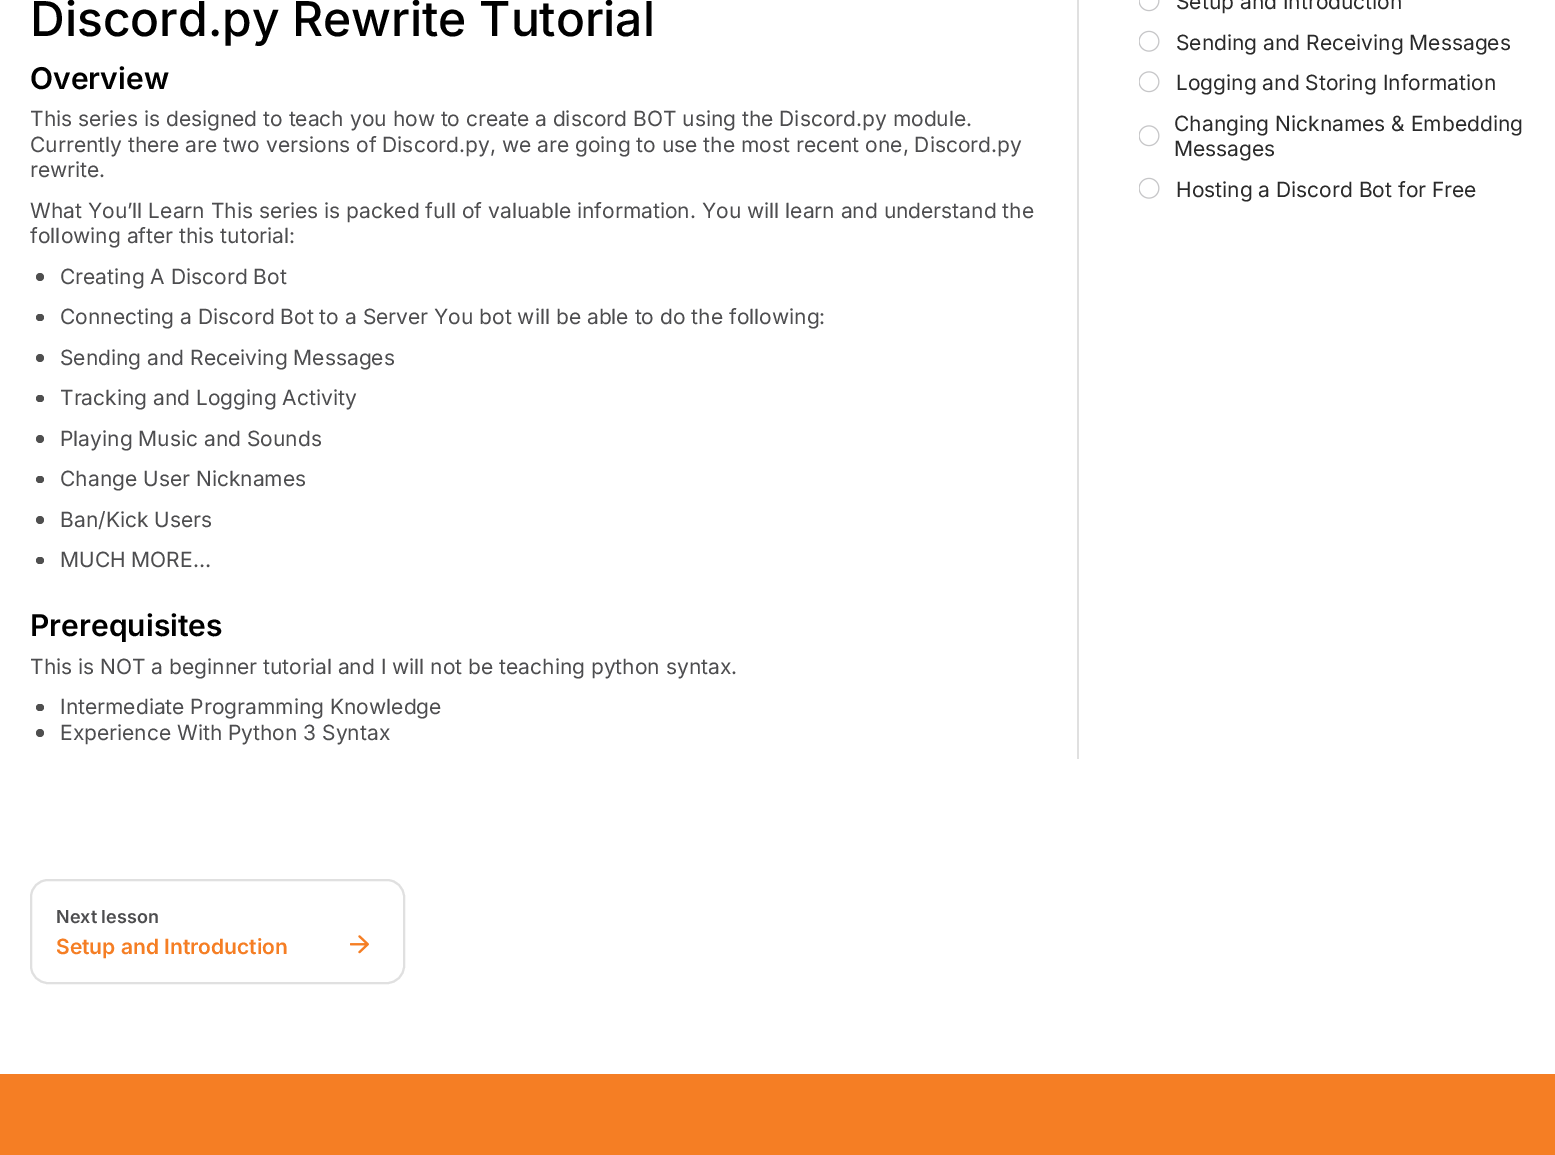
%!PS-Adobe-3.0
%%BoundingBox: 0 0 1555 1155
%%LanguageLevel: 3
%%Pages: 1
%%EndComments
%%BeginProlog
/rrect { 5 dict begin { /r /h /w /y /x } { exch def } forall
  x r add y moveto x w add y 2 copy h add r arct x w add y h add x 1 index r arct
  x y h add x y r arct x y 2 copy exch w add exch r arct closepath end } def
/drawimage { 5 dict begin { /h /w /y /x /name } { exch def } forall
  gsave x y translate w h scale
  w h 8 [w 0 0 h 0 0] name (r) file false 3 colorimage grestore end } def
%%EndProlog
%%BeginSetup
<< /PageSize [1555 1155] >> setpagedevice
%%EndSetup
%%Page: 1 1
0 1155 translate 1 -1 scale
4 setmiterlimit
1 setgray
0 0 1555 1155 rectfill
0.31 setgray
newpath 40 277 4 0 360 arc closepath fill
36 314 8 7 3.5 rrect fill
newpath 40 358 4 0 360 arc closepath fill
36 395 8 7 3.5 rrect fill
newpath 40 439 4 0 360 arc closepath fill
36 476 8 7 3.5 rrect fill
newpath 40 520 4 0 360 arc closepath fill
36 557 8 7 3.5 rrect fill
36 704 8 7 3.5 rrect fill
newpath 40 733 4 0 360 arc closepath fill
0.878 setgray
1077 0 2 759 rectfill
(images/1.raw) 1139 0 21 12 drawimage
(images/2.raw) 1139 30 21 22 drawimage
(images/3.raw) 1139 71 21 22 drawimage
(images/3.raw) 1139 125 21 22 drawimage
(images/2.raw) 1139 177 21 22 drawimage
2 setlinewidth
31 880 373 103 17 rrect stroke
(images/4.raw) 350 935 19 19 drawimage
0.961 0.494 0.141 setrgbcolor
0 1074 1555 81 rectfill
/Inter-Medium [48 0 0 -48 0 0] selectfont
0 setgray
30 36 moveto (Discord.py Rewrite Tutorial) show
/Inter-SemiBold [30 0 0 -30 0 0] selectfont
30 89 moveto (Overview) show
/Inter-Regular [21 0 0 -21 0 0] selectfont
0.302 0.302 0.31 setrgbcolor
30 126 moveto (This series is designed to teach you how to create a discord BOT using the Discord.py module.) show
30 152 moveto (Currently there are two versions of Discord.py, we are going to use the most recent one, Discord.py) show
30 177 moveto (rewrite.) show
30 218 moveto (What You’ll Learn This series is packed full of valuable information. You will learn and understand the) show
30 243 moveto (following after this tutorial:) show
60 284 moveto (Creating A Discord Bot) show
60 324 moveto (Connecting a Discord Bot to a Server You bot will be able to do the following:) show
60 365 moveto (Sending and Receiving Messages) show
60 405 moveto (Tracking and Logging Activity) show
60 446 moveto (Playing Music and Sounds) show
60 486 moveto (Change User Nicknames) show
60 527 moveto (Ban/Kick Users) show
60 567 moveto (MUCH MORE…) show
/Inter-SemiBold [30 0 0 -30 0 0] selectfont
0 setgray
30 636 moveto (Prerequisites) show
/Inter-Regular [21 0 0 -21 0 0] selectfont
0.302 0.302 0.31 setrgbcolor
30 674 moveto (This is NOT a beginner tutorial and I will not be teaching python syntax.) show
60 714 moveto (Intermediate Programming Knowledge) show
60 740 moveto (Experience With Python 3 Syntax) show
0.165 setgray
1176 9 moveto (Setup and Introduction) show
1176 50 moveto (Sending and Receiving Messages) show
1176 90 moveto (Logging and Storing Information) show
1174 131 moveto (Changing Nicknames & Embedding) show
1174 156 moveto (Messages) show
1176 197 moveto (Hosting a Discord Bot for Free) show
/Inter-SemiBold [18 0 0 -18 0 0] selectfont
0.302 0.302 0.31 setrgbcolor
56 923 moveto (Next lesson) show
/Inter-SemiBold [21 0 0 -21 0 0] selectfont
0.961 0.494 0.141 setrgbcolor
56 954 moveto (Setup and Introduction) show
showpage
%%EOF
